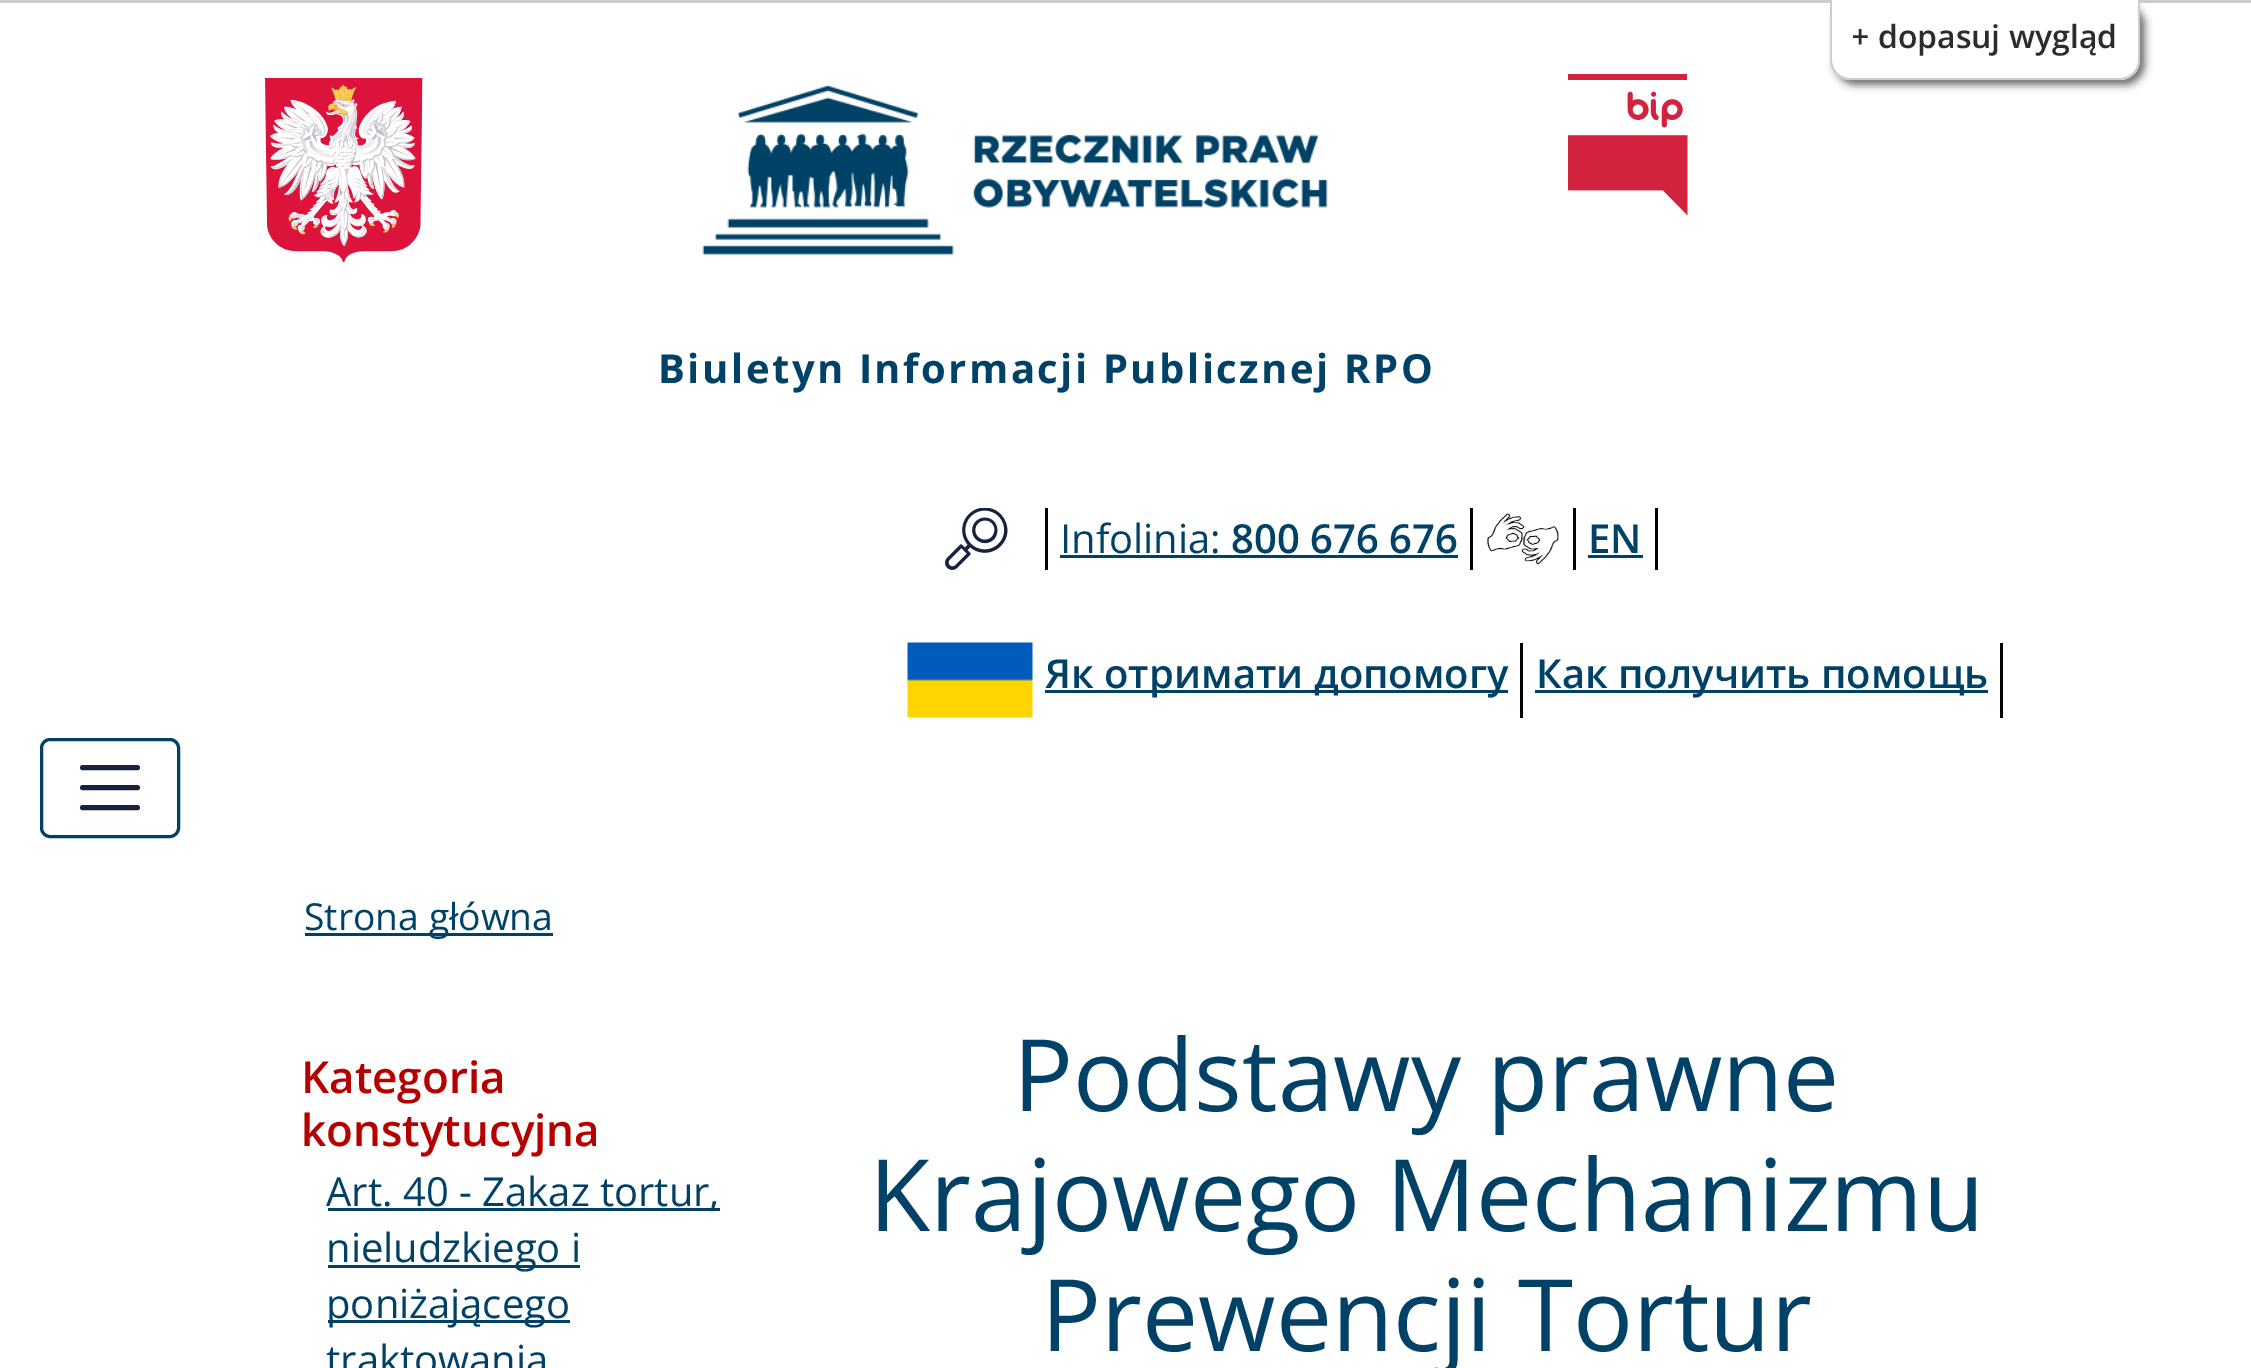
%!PS-Adobe-3.0
%%BoundingBox: 0 0 2251 1368
%%LanguageLevel: 3
%%Pages: 1
%%EndComments
%%BeginProlog
/setalpha { dup .setfillconstantalpha .setstrokeconstantalpha } def
/rrect { 5 dict begin { /r /h /w /y /x } { exch def } forall
  x r add y moveto x w add y 2 copy h add r arct x w add y h add x 1 index r arct
  x y h add x y r arct x y 2 copy exch w add exch r arct closepath end } def
/softshadow { 12 dict begin { /a /b /q /h /w /y /x } { exch def } forall gsave /was 0 def
  9 -2 -9 { dup b mul 4 div /e exch def 1 sub .425 mul 2.718 exch exp 1 add a .99 .min exch div /now exch def
    1 1 now sub 1 was sub div sub setalpha /was now def
    w h .min e 2 mul add 0 gt { x e sub y e sub w e 2 mul add h e 2 mul add
      q e add b .6 mul add w h .min 2 div e add .min 0 .max rrect fill } if } for grestore end } def
/drawimage { 5 dict begin { /h /w /y /x /name } { exch def } forall
  gsave x y translate w h scale
  w h 8 [w 0 0 h 0 0] name (r) file false 3 colorimage grestore end } def
%%EndProlog
%%BeginSetup
<< /PageSize [2251 1368] /PageUsesTransparency true >> setpagedevice
%%EndSetup
%%Page: 1 1
0 .pushpdf14devicefilter
0 1368 translate 1 -1 scale
4 setmiterlimit
1 setgray
0 0 2251 1368 rectfill
0.8 setgray
0 0 2251 3 rectfill
0.435 setgray
1835 5 310 80 20 4 1 softshadow
1 setgray
newpath 1830 0 moveto 2140 0 lineto 2140 60 lineto 2140 71 2131 80 2120 80 curveto 1850 80 lineto 1839 80 1830 71 1830 60 curveto closepath fill
0.8 setgray
newpath 1830 0 moveto 2140 0 lineto 2140 60 lineto 2140 71 2131 80 2120 80 curveto 1850 80 lineto 1839 80 1830 71 1830 60 curveto closepath 1832 0 moveto 2138 0 lineto 2138 60 lineto 2138 70 2130 78 2120 78 curveto 1850 78 lineto 1840 78 1832 70 1832 60 curveto closepath eofill
(images/1.raw) 265 78 158 185 drawimage
(images/2.raw) 702 85 626 171 drawimage
(images/3.raw) 1568 74 120 142 drawimage
0 setgray
1045 508 3 62 rectfill
(images/4.raw) 945 508 63 62 drawimage
1470 508 3 62 rectfill
0 0.255 0.404 setrgbcolor
1060 555 398 3 rectfill
0 setgray
1573 508 3 62 rectfill
(images/5.raw) 1487 513 72 52 drawimage
1655 508 3 62 rectfill
0 0.255 0.404 setrgbcolor
1588 555 55 3 rectfill
(images/6.raw) 907 642 126 76 drawimage
0 setgray
1520 643 3 75 rectfill
0 0.255 0.404 setrgbcolor
1045 690 463 3 rectfill
0 setgray
2000 643 3 75 rectfill
0 0.255 0.404 setrgbcolor
1535 690 453 3 rectfill
3 setlinewidth
41.5 739.5 137 97 8.5 rrect stroke
0.094 0.133 0.243 setrgbcolor
5 setlinewidth
1 setlinecap
newpath 82.5 767.5 moveto 137.5 767.5 lineto 82.5 787.5 moveto 137.5 787.5 lineto 82.5 807.5 moveto 137.5 807.5 lineto stroke
0 0.255 0.404 setrgbcolor
305 933 248 3 rectfill
328 1208 392 3 rectfill
328 1265 252 3 rectfill
328 1320 242 3 rectfill
gsave
1853 0 265 73 rectclip
/OpenSans-SemiBold [32 0 0 -32 0 0] selectfont
0.184 0.169 0.165 setrgbcolor
1851 48 moveto (+ dopasuj wygląd) show
grestore
/OpenSans-Bold [40 0 0 -40 0 0] selectfont
658 383 moveto 2.5 0 (Biuletyn Informacji Publicznej RPO) ashow
/OpenSans-Regular [40 0 0 -40 0 0] selectfont
1060 553 moveto (Infolinia:) show
/OpenSans-SemiBold [40 0 0 -40 0 0] selectfont
1231 553 moveto (800 676 676) show
1588 553 moveto (EN) show
1045 688 moveto (Як отримати допомогу) show
1536 688 moveto (Как получить помощь) show
/OpenSans-Regular [37.25 0 0 -37.25 0 0] selectfont
304 930 moveto (Strona główna) show
/OpenSans-SemiBold [44 0 0 -44 0 0] selectfont
0.714 0 0 setrgbcolor
301 1093 moveto (Kategoria) show
301 1146 moveto (konstytucyjna) show
/OpenSans-Regular [40 0 0 -40 0 0] selectfont
0 0.255 0.404 setrgbcolor
326 1206 moveto (Art. 40 - Zakaz tortur,) show
326 1262 moveto (nieludzkiego i) show
326 1318 moveto (poniżającego) show
326 1374 moveto (traktowania) show
/OpenSans-Regular [100 0 0 -100 0 0] selectfont
1013 1111 moveto (Podstawy prawne) show
869 1231 moveto (Krajowego Mechanizmu) show
1041 1351 moveto (Prewencji Tortur) show
.poppdf14devicefilter showpage
%%EOF
